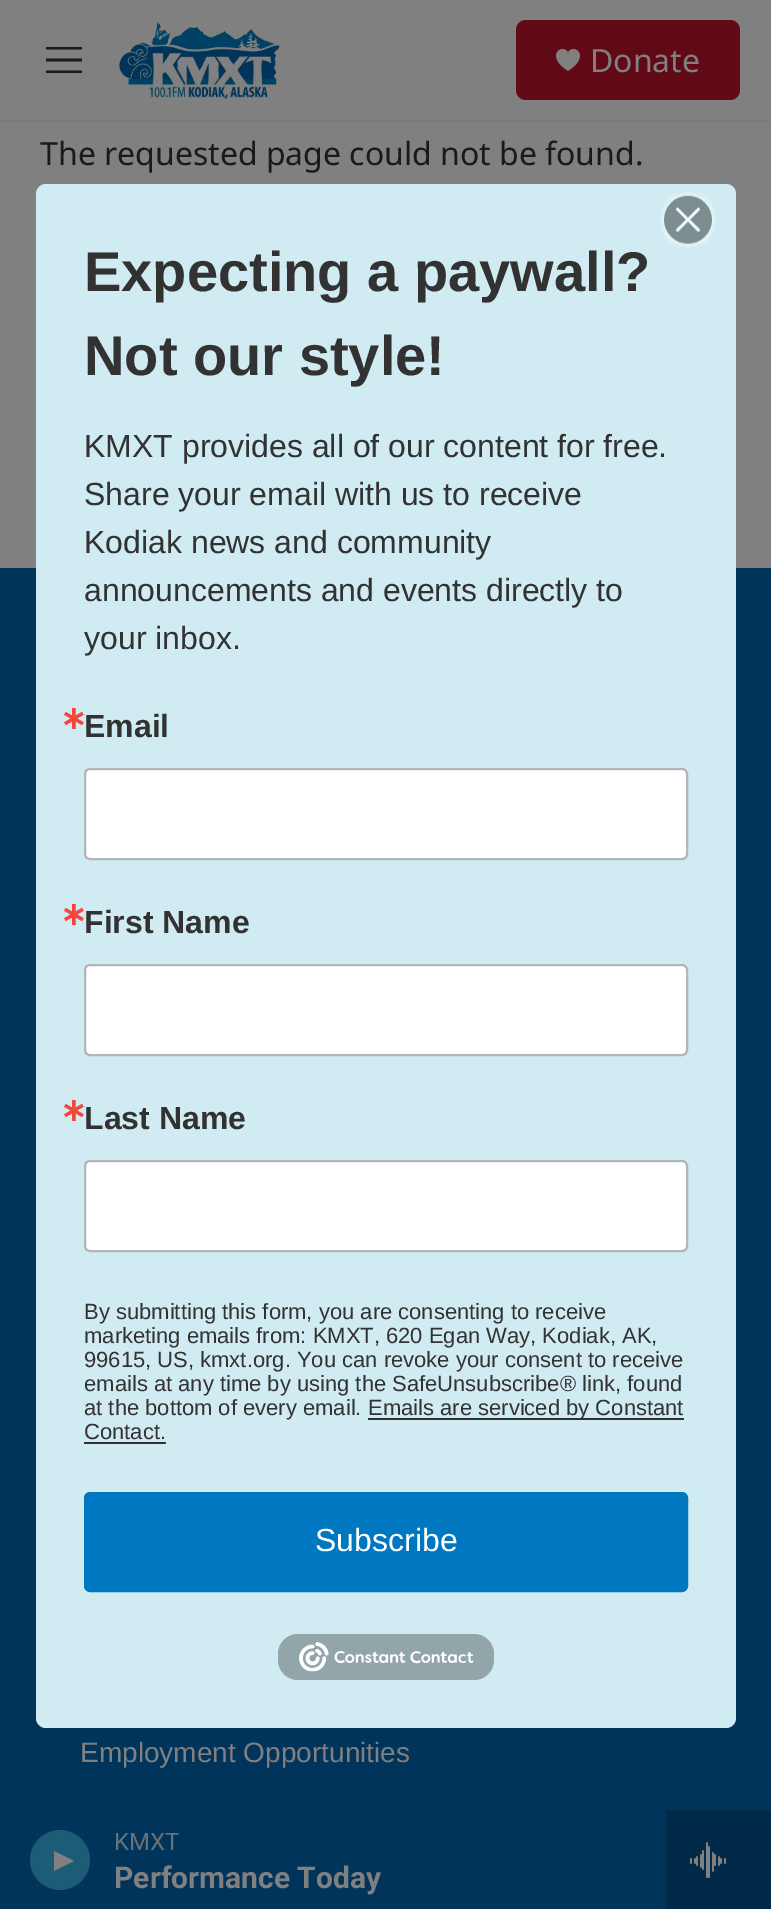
%!PS-Adobe-3.0
%%BoundingBox: 0 0 771 1909
%%LanguageLevel: 3
%%Pages: 1
%%EndComments
%%BeginProlog
/rrect { 5 dict begin { /r /h /w /y /x } { exch def } forall
  x r add y moveto x w add y 2 copy h add r arct x w add y h add x 1 index r arct
  x y h add x y r arct x y 2 copy exch w add exch r arct closepath end } def
/drawimage { 5 dict begin { /h /w /y /x /name } { exch def } forall
  gsave x y translate w h scale
  w h 8 [w 0 0 h 0 0] name (r) file false 3 colorimage grestore end } def
%%EndProlog
%%BeginSetup
<< /PageSize [771 1909] >> setpagedevice
%%EndSetup
%%Page: 1 1
0 1909 translate 1 -1 scale
4 setmiterlimit
0.502 setgray
0 0 771 1909 rectfill
0.482 setgray
0 120 771 2 rectfill
0.102 setgray
newpath 46 61.5 moveto 46 58.5 lineto 82 58.5 lineto 82 61.5 lineto closepath 46 49.5 moveto 46 47 lineto 82 47 lineto 82 49.5 lineto closepath 46 73 moveto 46 70.5 lineto 82 70.5 lineto 82 73 lineto closepath eofill
(images/1.raw) 119 22 161 77 drawimage
0.384 0.035 0.094 setrgbcolor
516 20 224 80 10 rrect fill
(images/2.raw) 556 49 24 22 drawimage
0 0.204 0.353 setrgbcolor
0 1810 666 99 rectfill
0.11 0.361 0.463 setrgbcolor
newpath 60 1860 30 0 360 arc closepath fill
0.502 setgray
newpath 54 1851 moveto 74 1861 lineto 54 1871 lineto closepath fill
0 0.165 0.282 setrgbcolor
666 1810 105 99 rectfill
(images/3.raw) 690 1842 36 36 drawimage
0 0.204 0.353 setrgbcolor
0 568 771 1242 rectfill
0.816 0.925 0.949 setrgbcolor
36 184 700 1544 10 rrect fill
(images/4.raw) 660 192 56 56 drawimage
1 setgray
85 769 602 90 5 rrect gsave fill grestore
0.69 0.714 0.733 setrgbcolor
2 setlinewidth
stroke
1 setgray
85 965 602 90 5 rrect gsave fill grestore
0.69 0.714 0.733 setrgbcolor
stroke
1 setgray
85 1161 602 90 5 rrect gsave fill grestore
0.69 0.714 0.733 setrgbcolor
stroke
0.196 setgray
368 1418 316 2 rectfill
84 1442 82 2 rectfill
0 0.471 0.757 setrgbcolor
85 1493 602 98 5 rrect gsave fill grestore
stroke
0.573 0.647 0.663 setrgbcolor
278 1634 216 46 20 rrect fill
(images/5.raw) 299 1642 175 30 drawimage
/NotoSans-Regular [32 0 0 -32 0 0] selectfont
0.502 setgray
590 72 moveto (Donate) show
/Roboto-Regular [24 0 0 -24 0 0] selectfont
0.4 0.443 0.471 setrgbcolor
114 1850 moveto (KMXT) show
/Roboto-Bold [30 0 0 -30 0 0] selectfont
0.502 setgray
114 1888 moveto (Performance Today) show
/NotoSans-Regular [32 0 0 -32 0 0] selectfont
0.102 setgray
40 165 moveto (The requested page could not be found.) show
/LiberationSans-Bold [56 0 0 -56 0 0] selectfont
0.196 setgray
84 291 moveto (Expecting a paywall?) show
84 375 moveto (Not our style!) show
/LiberationSans-Regular [32 0 0 -32 0 0] selectfont
84 457 moveto (KMXT provides all of our content for free.) show
84 505 moveto (Share your email with us to receive) show
84 553 moveto (Kodiak news and community) show
84 601 moveto (announcements and events directly to) show
84 649 moveto (your inbox.) show
/DejaVuSans-Bold [32 0 0 -32 0 0] selectfont
0.961 0.275 0.231 setrgbcolor
60 729 moveto (∗) show
/LiberationSans-Bold [32 0 0 -32 0 0] selectfont
0.196 setgray
84 737 moveto (Email) show
/DejaVuSans-Bold [32 0 0 -32 0 0] selectfont
0.961 0.275 0.231 setrgbcolor
60 925 moveto (∗) show
/LiberationSans-Bold [32 0 0 -32 0 0] selectfont
0.196 setgray
84 933 moveto (First Name) show
/DejaVuSans-Bold [32 0 0 -32 0 0] selectfont
0.961 0.275 0.231 setrgbcolor
60 1121 moveto (∗) show
/LiberationSans-Bold [32 0 0 -32 0 0] selectfont
0.196 setgray
84 1129 moveto (Last Name) show
/LiberationSans-Regular [22 0 0 -22 0 0] selectfont
84 1319 moveto (By submitting this form, you are consenting to receive) show
84 1343 moveto (marketing emails from: KMXT, 620 Egan Way, Kodiak, AK,) show
84 1367 moveto (99615, US, kmxt.org. You can revoke your consent to receive) show
84 1391 moveto (emails at any time by using the SafeUnsubscribe® link, found) show
84 1415 moveto (at the bottom of every email.) show
368 1415 moveto (Emails are serviced by Constant) show
84 1439 moveto (Contact.) show
/LiberationSans-Regular [32 0 0 -32 0 0] selectfont
1 setgray
315 1551 moveto (Subscribe) show
/LiberationSans-Regular [28 0 0 -28 0 0] selectfont
0.502 setgray
80 1762 moveto (Employment Opportunities) show
showpage
%%EOF
